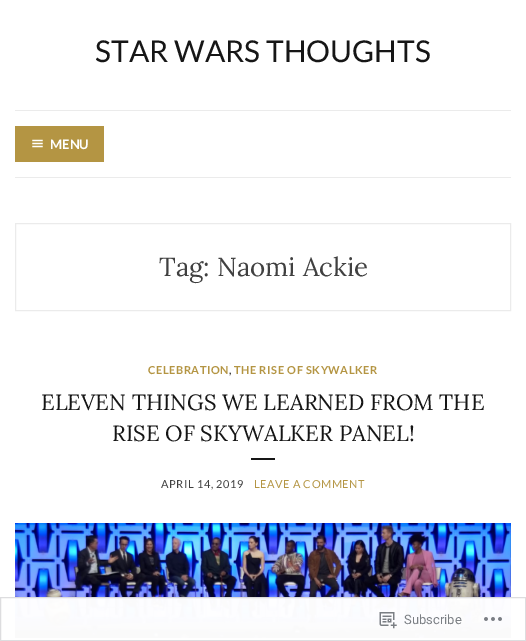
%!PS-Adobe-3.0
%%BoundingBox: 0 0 526 641
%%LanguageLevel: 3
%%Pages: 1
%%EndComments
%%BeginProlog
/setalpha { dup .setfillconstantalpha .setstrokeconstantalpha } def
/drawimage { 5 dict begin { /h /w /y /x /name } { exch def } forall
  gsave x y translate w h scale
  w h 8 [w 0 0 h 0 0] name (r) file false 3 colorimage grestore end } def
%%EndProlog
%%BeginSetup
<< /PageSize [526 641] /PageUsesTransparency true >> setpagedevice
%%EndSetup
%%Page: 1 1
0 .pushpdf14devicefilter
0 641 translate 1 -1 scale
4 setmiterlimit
1 setgray
0 0 526 641 rectfill
0.922 setgray
15 110 496 1 rectfill
15 177 496 1 rectfill
0.706 0.584 0.263 setrgbcolor
15 126 89 36 rectfill
(images/1.raw) 32 139 11 9 drawimage
0.922 setgray
15.5 223.5 495 87 rectstroke
0.086 setgray
251 458 24 2 rectfill
(images/2.raw) 15 523 496 115 drawimage
0.98 setalpha
1 setgray
15 597 496 41 rectfill
0.863 0.863 0.871 setrgbcolor
0.5 597.5 525 43 rectstroke
1 setalpha
(images/3.raw) 379 612 18 17 drawimage
(images/4.raw) 484 617 18 4 drawimage
/Lato-Regular [30 0 0 -30 0 0] selectfont
0.086 setgray
95 62 moveto (STAR WARS THOUGHTS) show
/Lato-Bold [13 0 0 -13 0 0] selectfont
1 setgray
50 149 moveto (MENU) show
/Lora-Regular [26 0 0 -26 0 0] selectfont
0.251 setgray
159 276 moveto (Tag: Naomi Ackie) show
/Lato-Bold [11 0 0 -11 0 0] selectfont
0.706 0.584 0.263 setrgbcolor
148 374 moveto 0.55 0 (CELEBRATION) ashow
0.251 setgray
229 374 moveto 0.55 0 (,) ashow
0.706 0.584 0.263 setrgbcolor
234 374 moveto 0.55 0 (THE RISE OF SKYWALKER) ashow
/Lora-Regular [22 0 0 -22 0 0] selectfont
0.086 setgray
41 410 moveto (ELEVEN THINGS WE LEARNED FROM THE) show
112 441 moveto (RISE OF SKYWALKER PANEL!) show
/Lato-Regular [11 0 0 -11 0 0] selectfont
0.251 setgray
161 488 moveto 0.55 0 (APRIL 14, 2019) ashow
0.706 0.584 0.263 setrgbcolor
254 488 moveto 0.55 0 (LEAVE A COMMENT) ashow
/Roboto-Regular [13 0 0 -13 0 0] selectfont
0.482 0.498 0.518 setrgbcolor
404 624 moveto (Subscribe) show
.poppdf14devicefilter showpage
%%EOF
